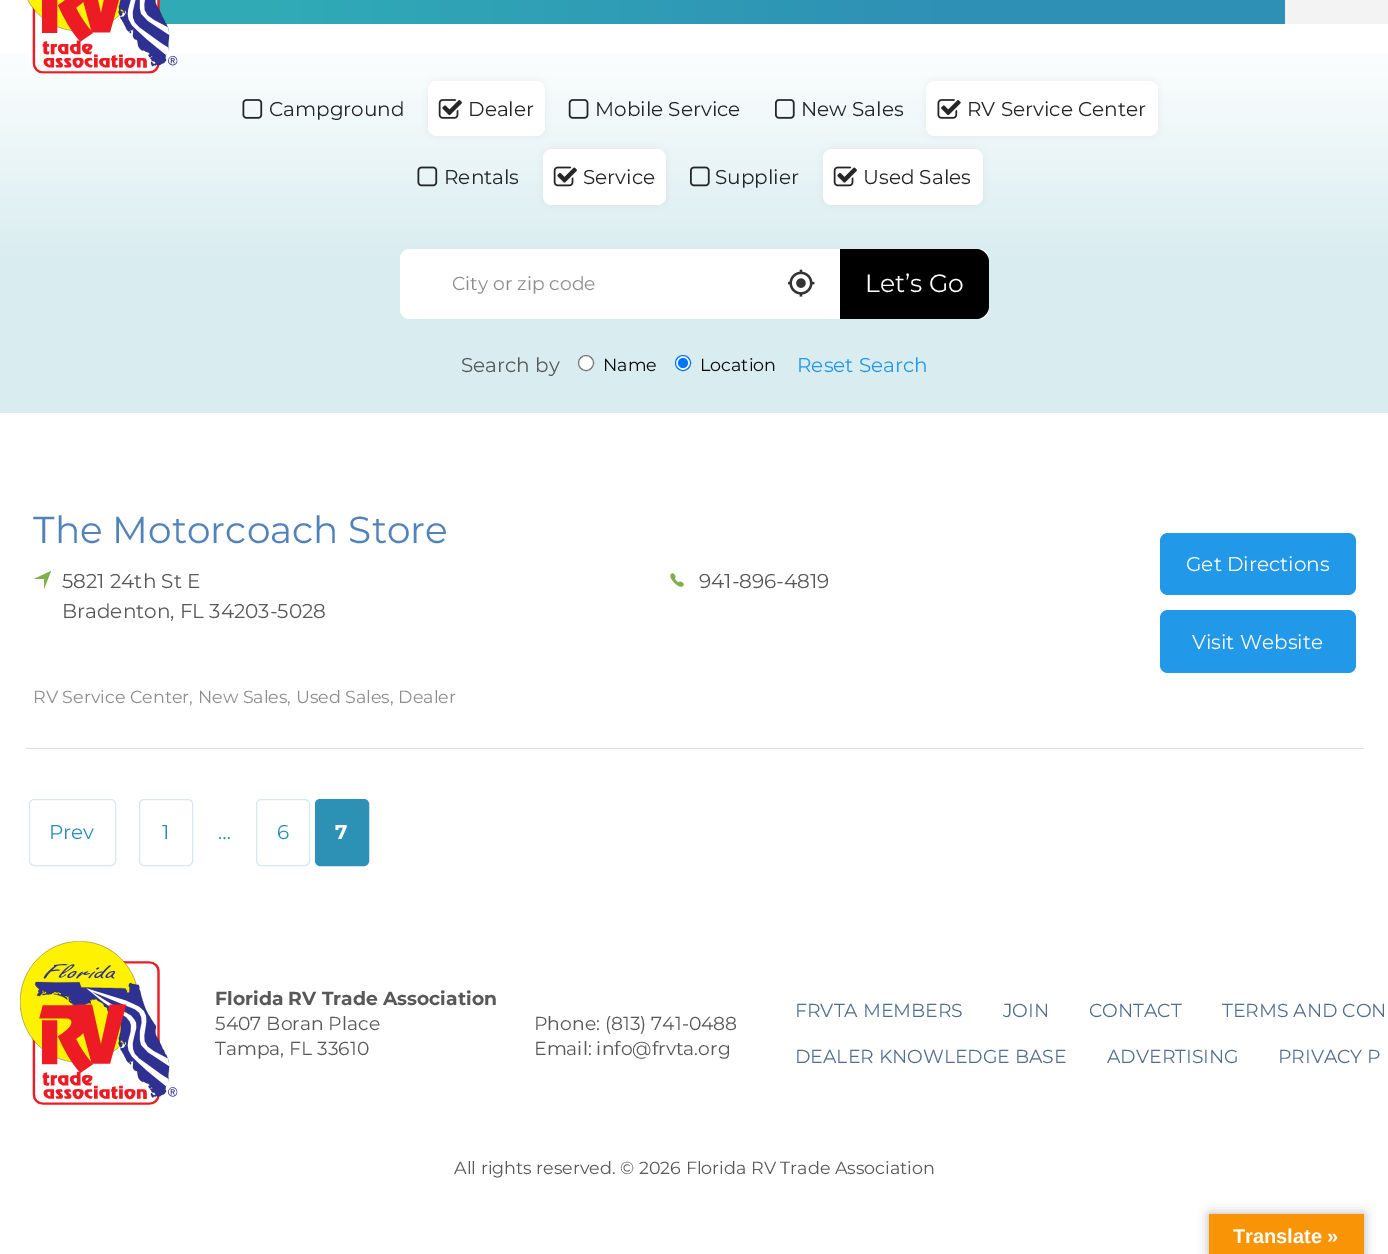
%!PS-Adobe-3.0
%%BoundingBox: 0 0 1388 1254
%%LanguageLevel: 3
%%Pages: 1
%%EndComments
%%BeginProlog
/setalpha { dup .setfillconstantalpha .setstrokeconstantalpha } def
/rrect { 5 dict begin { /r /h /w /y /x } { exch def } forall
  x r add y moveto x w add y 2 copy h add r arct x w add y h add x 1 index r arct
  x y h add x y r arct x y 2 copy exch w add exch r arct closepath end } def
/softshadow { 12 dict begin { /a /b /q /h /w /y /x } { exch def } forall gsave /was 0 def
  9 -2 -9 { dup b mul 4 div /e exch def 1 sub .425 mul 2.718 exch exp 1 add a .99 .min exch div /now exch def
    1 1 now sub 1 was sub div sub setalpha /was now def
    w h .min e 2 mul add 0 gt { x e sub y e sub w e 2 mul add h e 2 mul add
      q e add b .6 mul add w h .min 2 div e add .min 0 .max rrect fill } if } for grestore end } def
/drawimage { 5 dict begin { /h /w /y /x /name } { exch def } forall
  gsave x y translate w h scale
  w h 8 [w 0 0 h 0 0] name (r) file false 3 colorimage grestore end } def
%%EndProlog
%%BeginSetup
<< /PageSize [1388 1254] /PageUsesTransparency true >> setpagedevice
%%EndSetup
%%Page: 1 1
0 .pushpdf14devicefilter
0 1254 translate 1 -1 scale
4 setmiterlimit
1 setgray
0 0 1388 1254 rectfill
gsave newpath 159 0 moveto 1285 0 lineto 1285 24 lineto 159 24 lineto closepath clip newpath
<< /ShadingType 2 /ColorSpace /DeviceRGB /Coords [153 -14 1285 -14] /Extend [true true] /Function << /FunctionType 3 /Domain [0 1] /Functions [<< /FunctionType 2 /Domain [0 1] /C0 [0.188 0.671 0.714] /C1 [0.188 0.671 0.714] /N 1 >> << /FunctionType 2 /Domain [0 1] /C0 [0.188 0.671 0.714] /C1 [0.18 0.565 0.71] /N 1 >> << /FunctionType 2 /Domain [0 1] /C0 [0.18 0.565 0.71] /C1 [0.18 0.565 0.71] /N 1 >>] /Bounds [0.1 0.7] /Encode [0 1 0 1 0 1] >> >> shfill grestore
gsave newpath 0 53 moveto 1388 53 lineto 1388 413 lineto 0 413 lineto closepath clip newpath
<< /ShadingType 2 /ColorSpace /DeviceRGB /Coords [694 44 694 413] /Extend [true true] /Function << /FunctionType 3 /Domain [0 1] /Functions [<< /FunctionType 2 /Domain [0 1] /C0 [0.996 1 1] /C1 [0.851 0.925 0.941] /N 1 >> << /FunctionType 2 /Domain [0 1] /C0 [0.851 0.925 0.941] /C1 [0.851 0.925 0.941] /N 1 >>] /Bounds [0.6] /Encode [0 1 0 1] >> >> shfill grestore
(images/1.raw) 27 0 151 74 drawimage
0.953 setgray
1285 0 103 24 rectfill
(images/2.raw) 242 99 21 20 drawimage
0 setgray
428 81 117 55 9 4 0.06 softshadow
1 setgray
428 81 117 55 9 rrect fill
(images/3.raw) 438 99 24 20 drawimage
(images/4.raw) 568 99 21 20 drawimage
(images/5.raw) 775 99 20 20 drawimage
0 setgray
926 81 232 55 9 4 0.06 softshadow
1 setgray
926 81 232 55 9 rrect fill
(images/6.raw) 937 99 24 20 drawimage
(images/7.raw) 417 166 21 21 drawimage
0 setgray
543 149 123 56 9 4 0.06 softshadow
1 setgray
543 149 123 56 9 rrect fill
(images/8.raw) 553 166 24 21 drawimage
(images/9.raw) 690 166 20 21 drawimage
0 setgray
823 149 160 56 9 4 0.06 softshadow
1 setgray
823 149 160 56 9 rrect fill
(images/8.raw) 833 166 24 21 drawimage
400 249 589 70 10 rrect fill
(images/10.raw) 788 269 27 28 drawimage
0 setgray
newpath 840 249 moveto 976 249 lineto 983 249 989 255 989 262 curveto 989 306 lineto 989 313 983 319 976 319 curveto 840 319 lineto closepath fill
1 setgray
newpath 586 363 7.5 0 360 arc closepath gsave fill grestore
0.463 setgray
stroke
1 setgray
newpath 683 363 7.5 0 360 arc closepath gsave fill grestore
0 0.459 1 setrgbcolor
stroke
newpath 683 363 5 0 360 arc closepath fill
0.867 setgray
26 748 1338 1 rectfill
0.502 0.69 0.302 setrgbcolor
newpath 51 571 moveto 34 579 lineto 44 579 lineto 44 589 lineto closepath fill
(images/11.raw) 670 573 14 14 drawimage
0.129 0.6 0.91 setrgbcolor
1160 533 196 62 8 rrect fill
1160 610 196 63 8 rrect fill
0.835 0.914 0.945 setrgbcolor
29.5 799.5 86 66 4.5 rrect stroke
139.5 799.5 53 66 4.5 rrect stroke
256.5 799.5 53 66 4.5 rrect stroke
0.176 0.569 0.71 setrgbcolor
315.5 799.5 53 66 4.5 rrect gsave fill grestore
stroke
(images/12.raw) 20 941 158 164 drawimage
0 setgray
1209 1214 155 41 0 5.5 0.3 softshadow
0.973 0.58 0.024 setrgbcolor
1209 1214 155 40 rectfill
/Montserrat-Regular [20 0 0 -20 0 0] selectfont
0.141 0.145 0.149 setrgbcolor
269 116 moveto (Campground) show
468 116 moveto (Dealer) show
595 116 moveto (Mobile Service) show
801 116 moveto (New Sales) show
967 116 moveto (RV Service Center) show
444 184 moveto (Rentals) show
583 184 moveto (Service) show
715 184 moveto (Supplier) show
863 184 moveto (Used Sales) show
/Montserrat-Regular [18.75 0 0 -18.75 0 0] selectfont
0.553 setgray
452 290 moveto (City or zip code) show
/Montserrat-Regular [25 0 0 -25 0 0] selectfont
1 setgray
865 292 moveto (Let’s Go) show
/Montserrat-Regular [20 0 0 -20 0 0] selectfont
0.345 setgray
461 372 moveto (Search by) show
/Montserrat-Regular [17.5 0 0 -17.5 0 0] selectfont
0.039 setgray
603 371 moveto (Name) show
700 371 moveto (Location) show
/Montserrat-Regular [20 0 0 -20 0 0] selectfont
0.129 0.6 0.91 setrgbcolor
797 372 moveto (Reset Search) show
/Montserrat-Regular [37.5 0 0 -37.5 0 0] selectfont
0.318 0.51 0.725 setrgbcolor
33 543 moveto (The Motorcoach Store) show
/Montserrat-Regular [20 0 0 -20 0 0] selectfont
0.345 setgray
62 588 moveto (5821 24th St E) show
62 618 moveto (Bradenton, FL 34203-5028) show
699 588 moveto (941-896-4819) show
/Montserrat-Regular [17.5 0 0 -17.5 0 0] selectfont
0.553 setgray
33 703 moveto (RV Service Center, New Sales, Used Sales, Dealer) show
/Montserrat-Regular [20 0 0 -20 0 0] selectfont
1 setgray
1186 571 moveto (Get Directions) show
1192 649 moveto (Visit Website) show
0.149 0.565 0.718 setrgbcolor
49 839 moveto (Prev) show
162 839 moveto (1) show
218 839 moveto (…) show
277 839 moveto (6) show
/Montserrat-Bold [20 0 0 -20 0 0] selectfont
1 setgray
335 839 moveto (7) show
/Montserrat-Bold [18.75 0 0 -18.75 0 0] selectfont
0.345 setgray
215 1005 moveto (Florida RV Trade Association) show
/Montserrat-Regular [18.75 0 0 -18.75 0 0] selectfont
215 1030 moveto (5407 Boran Place) show
215 1055 moveto (Tampa, FL 33610) show
534 1030 moveto (Phone: \(813\) 741-0488) show
534 1055 moveto (Email: info@frvta.org) show
0.318 0.431 0.561 setrgbcolor
795 1017 moveto (FRVTA MEMBERS) show
1003 1017 moveto (JOIN) show
1089 1017 moveto (CONTACT) show
1222 1017 moveto (TERMS AND CON) show
795 1063 moveto (DEALER KNOWLEDGE BASE) show
1107 1063 moveto (ADVERTISING) show
1278 1063 moveto (PRIVACY P) show
/Montserrat-Regular [17.5 0 0 -17.5 0 0] selectfont
0.345 setgray
454 1174 moveto (All rights reserved. © 2026 Florida RV Trade Association) show
/LiberationSans-Bold [20 0 0 -20 0 0] selectfont
1 setgray
1233 1243 moveto (Translate ») show
.poppdf14devicefilter showpage
%%EOF
